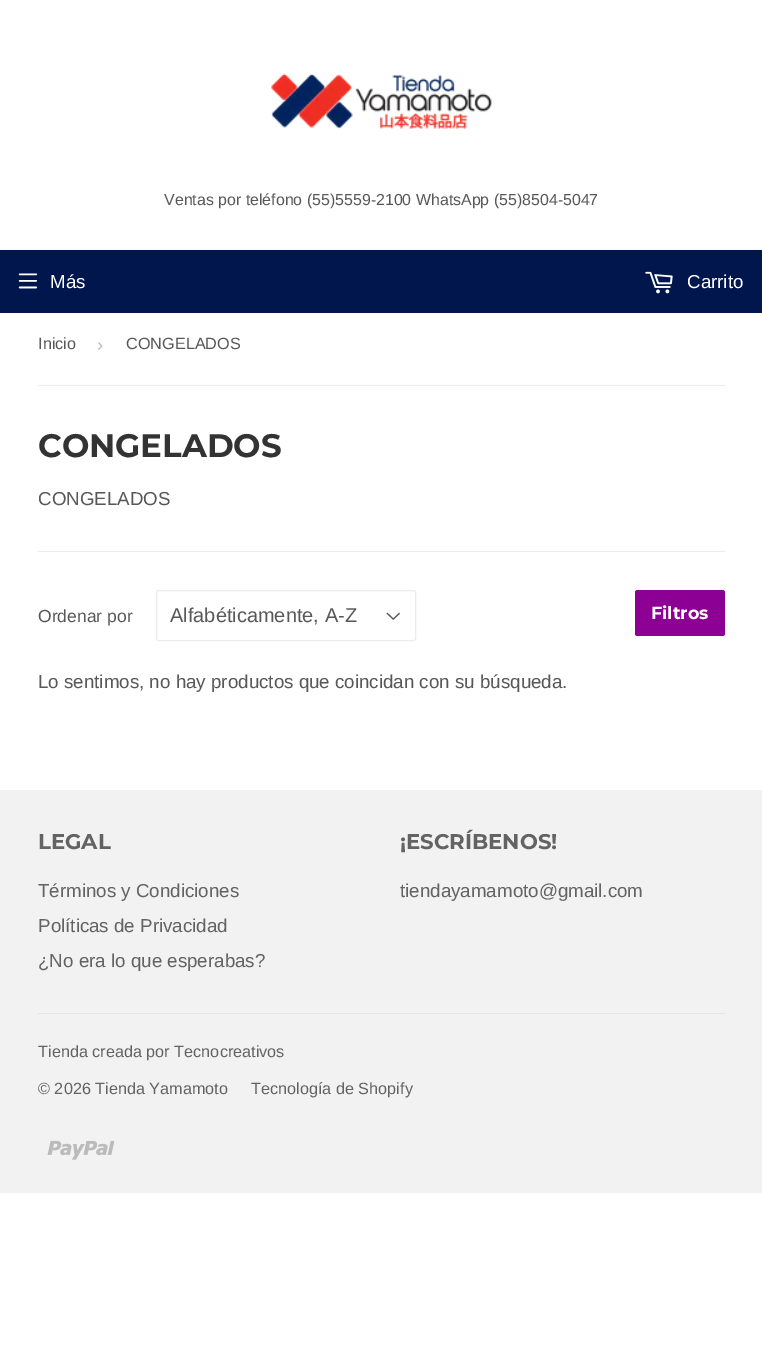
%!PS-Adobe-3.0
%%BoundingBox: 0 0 762 1349
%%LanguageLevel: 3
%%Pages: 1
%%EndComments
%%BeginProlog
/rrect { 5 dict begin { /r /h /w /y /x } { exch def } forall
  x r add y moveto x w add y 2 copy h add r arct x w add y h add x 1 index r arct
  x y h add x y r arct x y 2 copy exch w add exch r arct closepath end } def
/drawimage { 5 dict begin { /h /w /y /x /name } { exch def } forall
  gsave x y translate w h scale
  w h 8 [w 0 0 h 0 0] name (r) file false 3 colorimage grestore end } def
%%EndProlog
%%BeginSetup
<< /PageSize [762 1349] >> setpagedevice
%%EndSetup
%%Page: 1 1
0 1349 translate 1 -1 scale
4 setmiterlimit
1 setgray
0 0 762 1349 rectfill
(images/1.raw) 271 73 222 56 drawimage
0 0.086 0.298 setrgbcolor
0 250 762 63 rectfill
(images/2.raw) 18 273 20 16 drawimage
(images/3.raw) 645 271 28 23 drawimage
0.925 setgray
38 385 687 1 rectfill
38 551 687 1 rectfill
(images/4.raw) 386 612 14 8 drawimage
156.5 590.5 259 50 2 rrect stroke
0.549 0 0.576 setrgbcolor
635 590 90 46 2.5 rrect fill
0.949 setgray
0 790 762 403 rectfill
0.898 setgray
38 1013 687 1 rectfill
(images/5.raw) 47 1140 68 20 drawimage
/LiberationSans-Regular [15.95 0 0 -15.95 0 0] selectfont
0.345 setgray
164 205 moveto (Ventas por teléfono \(55\)5559-2100 WhatsApp \(55\)8504-5047) show
/LiberationSans-Regular [18.75 0 0 -18.75 0 0] selectfont
1 setgray
50 288 moveto (Más) show
687 288 moveto (Carrito) show
/LiberationSans-Regular [16.25 0 0 -16.25 0 0] selectfont
0.345 setgray
38 349 moveto (Inicio) show
/LiberationSans-Regular [18.75 0 0 -18.75 0 0] selectfont
0.733 setgray
97 351 moveto (›) show
/LiberationSans-Regular [16.25 0 0 -16.25 0 0] selectfont
0.345 setgray
126 349 moveto (CONGELADOS) show
/Montserrat-Thin [32.5 0 0 -32.5 0 0] selectfont
0.2 setgray
38 457 moveto (CONGELADOS) show
/LiberationSans-Regular [18.75 0 0 -18.75 0 0] selectfont
0.345 setgray
38 505 moveto (CONGELADOS) show
/LiberationSans-Regular [17.5 0 0 -17.5 0 0] selectfont
38 622 moveto (Ordenar por) show
/LiberationSans-Regular [20 0 0 -20 0 0] selectfont
170 622 moveto (Alfabéticamente, A-Z) show
/Montserrat-Thin [17.5 0 0 -17.5 0 0] selectfont
1 setgray
651 619 moveto (Filtros) show
/LiberationSans-Regular [18.75 0 0 -18.75 0 0] selectfont
0.345 setgray
38 688 moveto (Lo sentimos, no hay productos que coincidan con su búsqueda.) show
/Montserrat-Thin [21.25 0 0 -21.25 0 0] selectfont
0.388 setgray
38 849 moveto (LEGAL) show
/LiberationSans-Regular [18.75 0 0 -18.75 0 0] selectfont
38 897 moveto (Términos y Condiciones) show
38 932 moveto (Políticas de Privacidad) show
38 967 moveto (¿No era lo que esperabas?) show
/Montserrat-Thin [21.25 0 0 -21.25 0 0] selectfont
400 849 moveto (¡ESCRÍBENOS!) show
/LiberationSans-Regular [18.75 0 0 -18.75 0 0] selectfont
400 897 moveto (tiendayamamoto@gmail.com) show
/LiberationSans-Regular [16.25 0 0 -16.25 0 0] selectfont
38 1057 moveto (Tienda creada por Tecnocreativos) show
38 1094 moveto (© 2026 Tienda Yamamoto) show
251 1094 moveto (Tecnología de Shopify) show
showpage
%%EOF
